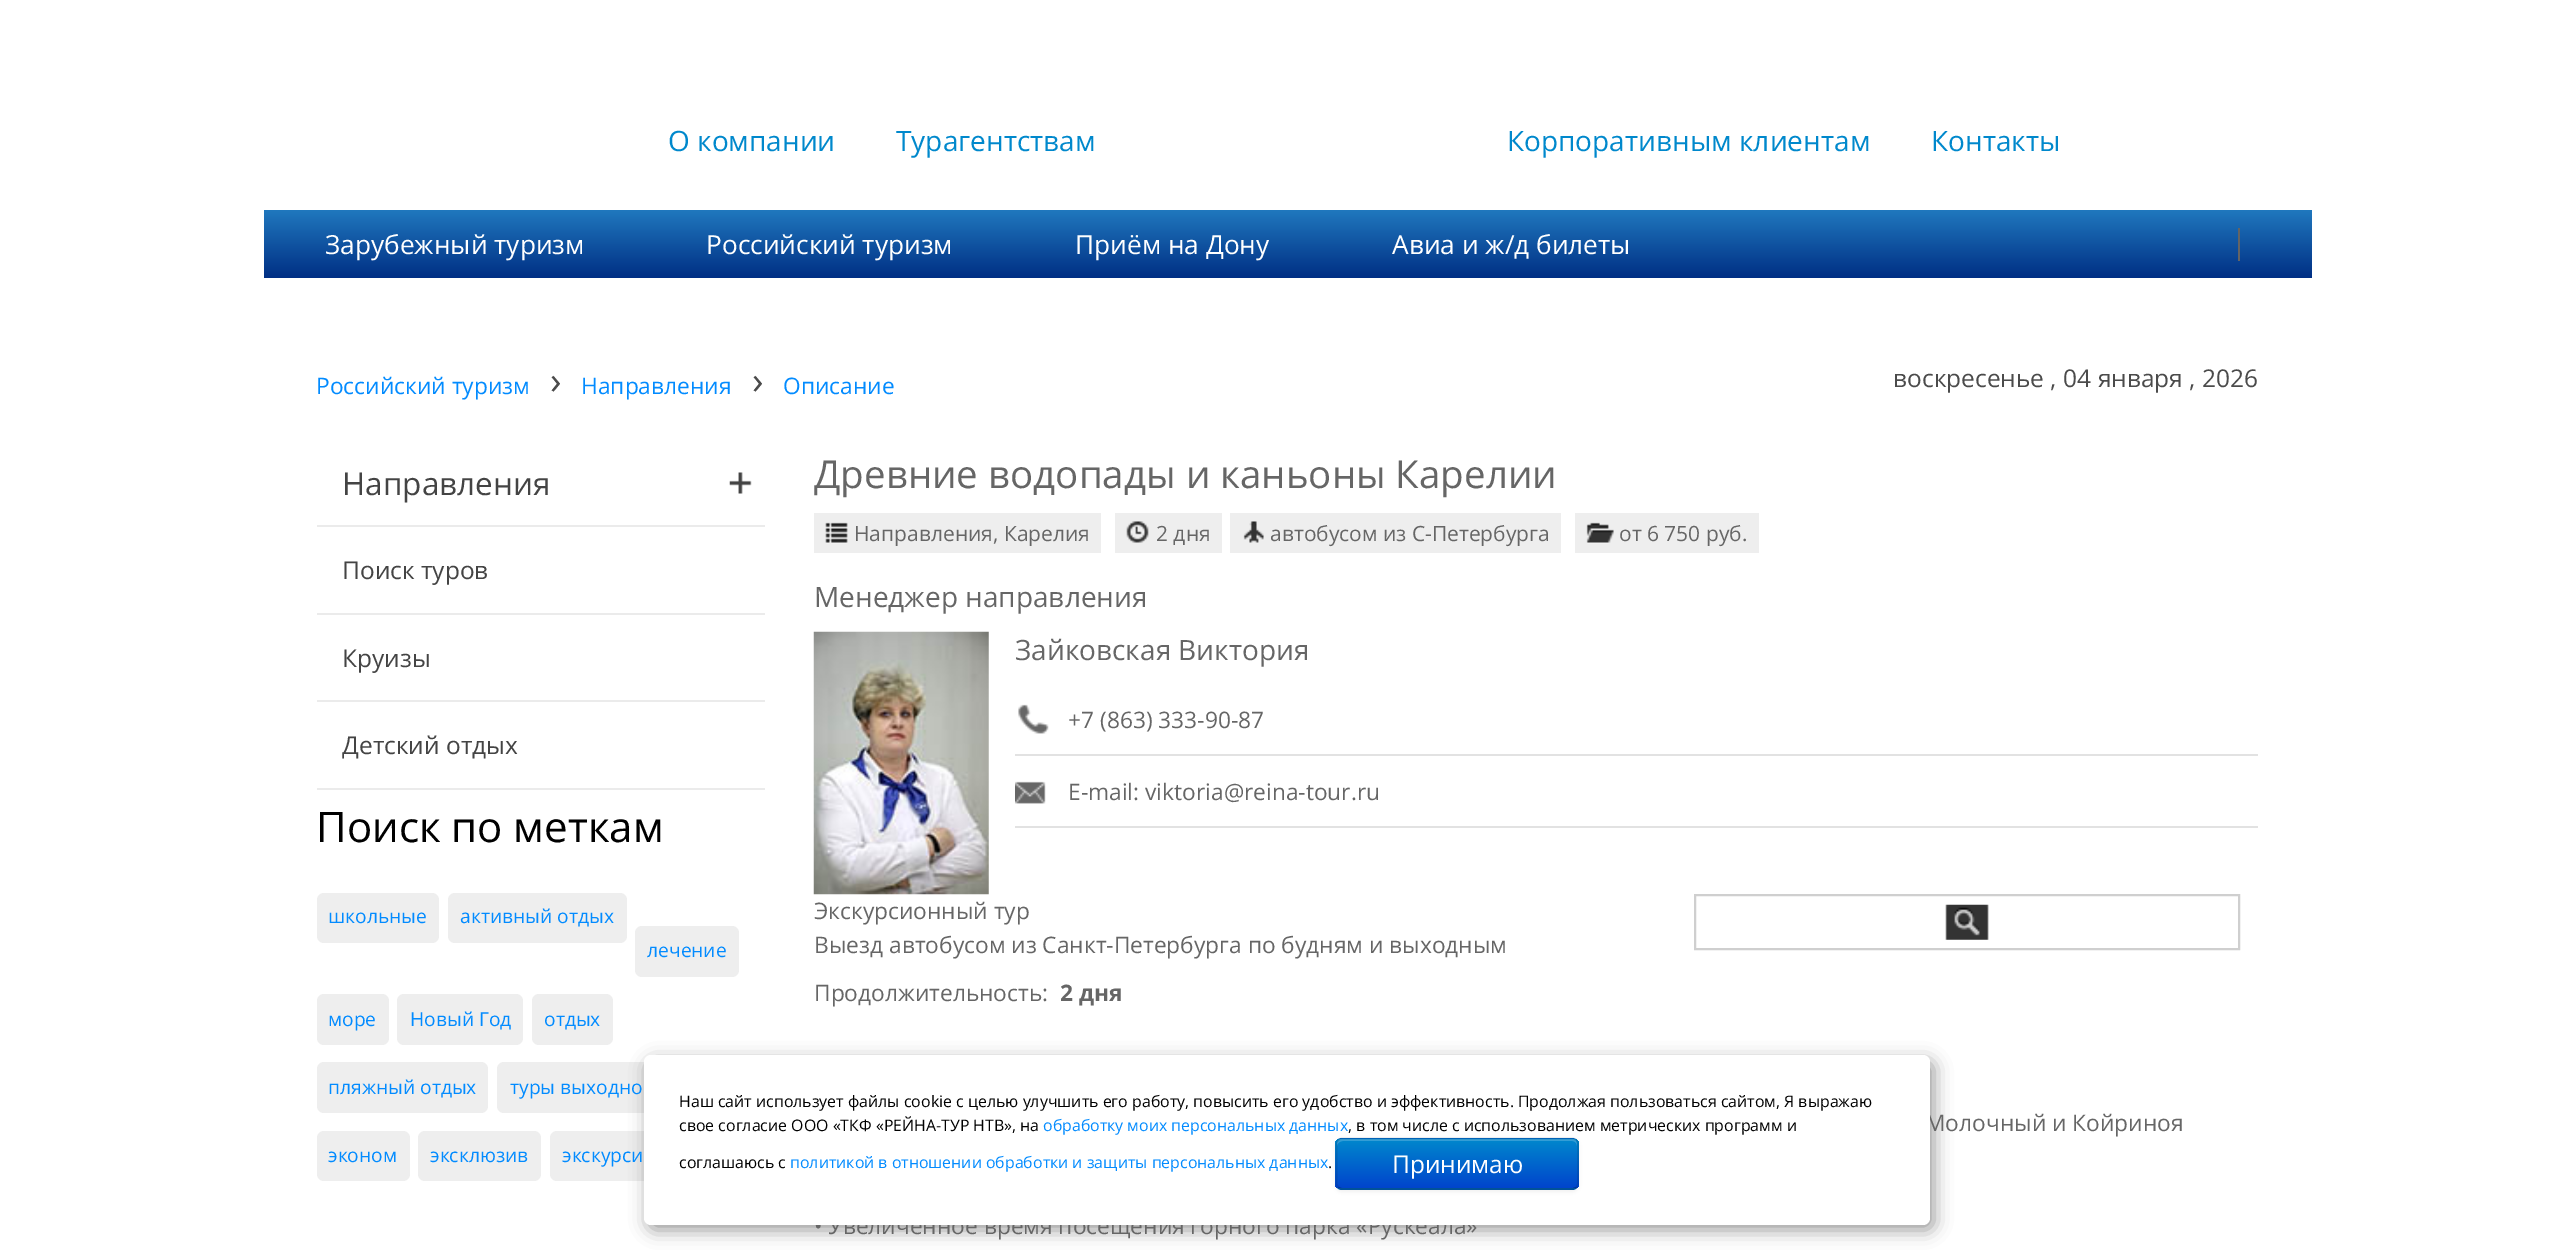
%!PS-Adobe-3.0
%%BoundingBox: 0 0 2573 1250
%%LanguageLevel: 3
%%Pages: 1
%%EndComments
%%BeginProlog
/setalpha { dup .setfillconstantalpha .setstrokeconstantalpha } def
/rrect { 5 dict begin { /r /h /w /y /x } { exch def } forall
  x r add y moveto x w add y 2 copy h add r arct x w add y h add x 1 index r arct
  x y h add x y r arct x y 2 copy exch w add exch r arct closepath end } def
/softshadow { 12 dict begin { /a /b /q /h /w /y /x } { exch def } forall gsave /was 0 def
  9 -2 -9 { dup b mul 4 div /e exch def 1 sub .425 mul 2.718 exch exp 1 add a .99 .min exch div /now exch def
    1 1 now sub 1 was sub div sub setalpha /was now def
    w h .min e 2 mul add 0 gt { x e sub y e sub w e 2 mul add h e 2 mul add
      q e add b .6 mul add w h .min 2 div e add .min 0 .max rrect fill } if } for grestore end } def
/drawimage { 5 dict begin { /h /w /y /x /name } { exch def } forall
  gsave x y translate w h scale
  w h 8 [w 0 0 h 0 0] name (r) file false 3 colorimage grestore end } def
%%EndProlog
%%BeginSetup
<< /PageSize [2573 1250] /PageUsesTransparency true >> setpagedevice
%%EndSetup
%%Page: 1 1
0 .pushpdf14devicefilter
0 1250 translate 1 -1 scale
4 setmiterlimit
1 setgray
0 0 2573 1250 rectfill
gsave newpath 264 210 moveto 2312 210 lineto 2312 278 lineto 264 278 lineto closepath clip newpath
<< /ShadingType 2 /ColorSpace /DeviceRGB /Coords [1288 210 1288 278] /Extend [true true] /Function << /FunctionType 2 /Domain [0 1] /C0 [0.125 0.471 0.745] /C1 [0 0.184 0.518] /N 1 >> >> shfill grestore
0.392 setgray
2238 228 2 33 rectfill
0.922 setgray
317 525 448 2 rectfill
(images/1.raw) 729 472 23 22 drawimage
317 613 448 2 rectfill
317 700 448 2 rectfill
317 788 448 2 rectfill
0.933 setgray
317 893 122 50 7 rrect fill
448 893 179 50 7 rrect fill
635 926 104 51 7 rrect fill
317 994 72 51 7 rrect fill
397 994 126 51 7 rrect fill
532 994 81 51 7 rrect fill
317 1062 171 51 7 rrect fill
497 1062 217 51 7 rrect fill
317 1131 93 50 7 rrect fill
418 1131 123 50 7 rrect fill
550 1131 168 50 7 rrect fill
814 513 287 40 rectfill
(images/2.raw) 825 522 23 22 drawimage
1115 513 107 40 rectfill
(images/3.raw) 1126 521 23 22 drawimage
1230 513 331 40 rectfill
(images/4.raw) 1243 521 21 22 drawimage
1575 513 184 40 rectfill
(images/5.raw) 1586 522 28 22 drawimage
(images/6.raw) 813 631 176 264 drawimage
0.886 setgray
1015 754 1243 2 rectfill
(images/7.raw) 1018 704 31 30 drawimage
1015 826 1243 2 rectfill
(images/8.raw) 1015 781 31 23 drawimage
0.812 setgray
2 setlinewidth
1695 895 544 54 rectstroke
(images/9.raw) 1945 904 44 36 drawimage
0 setgray
648 1061 1286 169 7 9 0.4 softshadow
/OpenSans-Regular [28 0 0 -28 0 0] selectfont
0 0.533 0.8 setrgbcolor
668 151 moveto (О компании) show
896 151 moveto (Турагентствам) show
1507 151 moveto (Корпоративным клиентам) show
1931 151 moveto (Контакты) show
/OpenSans-Regular [26.25 0 0 -26.25 0 0] selectfont
1 setgray
325 254 moveto (Зарубежный туризм) show
706 254 moveto (Российский туризм) show
1075 254 moveto (Приём на Дону) show
1392 254 moveto (Авиа и ж/д билеты) show
/OpenSans-Regular [22.75 0 0 -22.75 0 0] selectfont
0.008 0.545 1 setrgbcolor
316 394 moveto (Российский туризм) show
/OpenSans-Regular [38.5 0 0 -38.5 0 0] selectfont
0.294 setgray
550 394 moveto (›) show
/OpenSans-Regular [22.75 0 0 -22.75 0 0] selectfont
0.008 0.545 1 setrgbcolor
581 394 moveto (Направления) show
/OpenSans-Regular [38.5 0 0 -38.5 0 0] selectfont
0.294 setgray
752 394 moveto (›) show
/OpenSans-Regular [22.75 0 0 -22.75 0 0] selectfont
0.008 0.545 1 setrgbcolor
783 394 moveto (Описание) show
/OpenSans-Regular [24.5 0 0 -24.5 0 0] selectfont
0.294 setgray
1893 387 moveto (воскресенье , 04 января , 2026) show
/OpenSans-Regular [31.5 0 0 -31.5 0 0] selectfont
0.267 setgray
342 495 moveto (Направления) show
/OpenSans-Regular [24.5 0 0 -24.5 0 0] selectfont
342 579 moveto (Поиск туров) show
342 667 moveto (Круизы) show
342 754 moveto (Детский отдых) show
/OpenSans-Regular [42 0 0 -42 0 0] selectfont
0 setgray
316 842 moveto (Поиск по меткам) show
/OpenSans-Regular [19.25 0 0 -19.25 0 0] selectfont
0.008 0.545 1 setrgbcolor
328 923 moveto (школьные) show
460 923 moveto (активный отдых) show
647 957 moveto (лечение) show
328 1026 moveto (море) show
410 1026 moveto (Новый Год) show
544 1026 moveto (отдых) show
328 1094 moveto (пляжный отдых) show
510 1094 moveto (туры выходно) show
328 1162 moveto (эконом) show
430 1162 moveto (эксклюзив) show
562 1162 moveto (экскурси) show
/OpenSans-Regular [38.5 0 0 -38.5 0 0] selectfont
0.4 setgray
814 488 moveto (Древние водопады и каньоны Карелии) show
/OpenSans-Regular [21 0 0 -21 0 0] selectfont
854 541 moveto (Направления, Карелия) show
1156 541 moveto (2 дня) show
1270 541 moveto (автобусом из С-Петербурга) show
1619 541 moveto (от 6 750 руб.) show
/OpenSans-Regular [28 0 0 -28 0 0] selectfont
814 607 moveto (Менеджер направления) show
1015 660 moveto (Зайковская Виктория) show
/OpenSans-Regular [22.75 0 0 -22.75 0 0] selectfont
1068 728 moveto (+7 \(863\) 333-90-87) show
1068 800 moveto (E-mail: viktoria@reina-tour.ru) show
814 919 moveto (Экскурсионный тур) show
814 953 moveto (Выезд автобусом из Санкт-Петербурга по будням и выходным) show
814 1001 moveto (Продолжительность:) show
/OpenSans-Bold [22.75 0 0 -22.75 0 0] selectfont
1060 1001 moveto (2 дня) show
/OpenSans-Regular [22.75 0 0 -22.75 0 0] selectfont
1925 1131 moveto (Молочный и Койриноя) show
814 1234 moveto (• Увеличенное время посещения горного парка «Рускеала») show
1 setgray
644 1055 1286 170 7 rrect fill
/OpenSans-Regular [15.92 0 0 -15.92 0 0] selectfont
0 setgray
679 1107 moveto (Наш сайт использует файлы cookie с целью улучшить его работу, повысить его удобство и эффективность. Продолжая пользоваться сайтом, Я выражаю) show
679 1131 moveto (свое согласие ООО «ТКФ «РЕЙНА-ТУР НТВ», на) show
0.008 0.545 1 setrgbcolor
1043 1131 moveto (обработку моих персональных данных) show
0 setgray
1348 1131 moveto (, в том числе с использованием метрических программ и) show
679 1168 moveto (соглашаюсь с) show
0.008 0.545 1 setrgbcolor
790 1168 moveto (политикой в отношении обработки и защиты персональных данных) show
0 setgray
1328 1168 moveto (.) show
1335 1139 244 53 7 2 0.05 softshadow
0 0.427 0.8 setrgbcolor
1335 1138 244 52 7 rrect fill
gsave
1335 1138 244 52 7 rrect clip newpath
gsave newpath 1335 1139 moveto 1579 1139 lineto 1579 1188 lineto 1335 1188 lineto closepath clip newpath
<< /ShadingType 2 /ColorSpace /DeviceRGB /Coords [1457 1139 1457 1188] /Extend [true true] /Function << /FunctionType 2 /Domain [0 1] /C0 [0 0.533 0.8] /C1 [0 0.267 0.8] /N 1 >> >> shfill grestore
grestore
0.2 setalpha
1 setgray
newpath 1343 1141 moveto 1572 1141 lineto 1575 1141 1577 1143 1577 1146 curveto 1577 1143 1577 1140 1573 1139 curveto 1341 1139 lineto 1337 1140 1337 1143 1337 1146 curveto 1337 1143 1340 1141 1343 1141 curveto closepath fill
0.25 setalpha
0 setgray
1.8 setlinewidth
newpath 1576.5 1187.5 moveto 1575 1188.5 1573.5 1189 1572 1189 curveto 1342.5 1189 lineto 1341 1189 1339.5 1188.5 1338.5 1187.5 curveto stroke
0.1 setalpha
newpath 1338.5 1187.5 moveto 1337 1186 1336.5 1184.5 1336.5 1183 curveto 1336.5 1144.5 lineto 1336.5 1143 1337 1141.5 1338.5 1140 curveto 1339.5 1139 1341 1138.5 1342.5 1138.5 curveto 1572 1138.5 lineto 1573.5 1138.5 1575 1139 1576.5 1140 curveto 1577.5 1141.5 1578 1143 1578 1144.5 curveto 1578 1183 lineto 1578 1184.5 1577.5 1186 1576.5 1187.5 curveto stroke
/OpenSans-Regular [24.5 0 0 -24.5 0 0] selectfont
1 setalpha
1 setgray
1392 1173 moveto (Принимаю) show
.poppdf14devicefilter showpage
%%EOF
